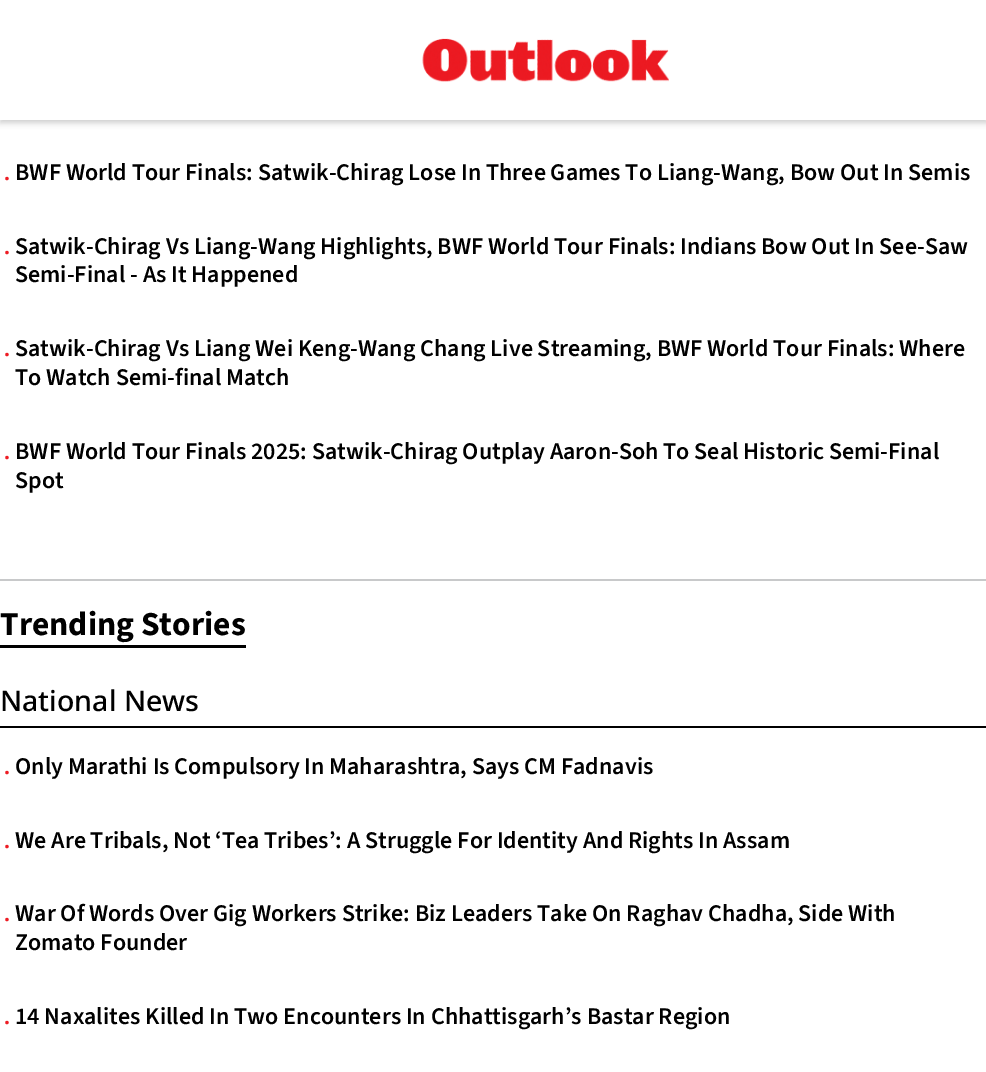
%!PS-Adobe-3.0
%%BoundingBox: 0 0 986 1072
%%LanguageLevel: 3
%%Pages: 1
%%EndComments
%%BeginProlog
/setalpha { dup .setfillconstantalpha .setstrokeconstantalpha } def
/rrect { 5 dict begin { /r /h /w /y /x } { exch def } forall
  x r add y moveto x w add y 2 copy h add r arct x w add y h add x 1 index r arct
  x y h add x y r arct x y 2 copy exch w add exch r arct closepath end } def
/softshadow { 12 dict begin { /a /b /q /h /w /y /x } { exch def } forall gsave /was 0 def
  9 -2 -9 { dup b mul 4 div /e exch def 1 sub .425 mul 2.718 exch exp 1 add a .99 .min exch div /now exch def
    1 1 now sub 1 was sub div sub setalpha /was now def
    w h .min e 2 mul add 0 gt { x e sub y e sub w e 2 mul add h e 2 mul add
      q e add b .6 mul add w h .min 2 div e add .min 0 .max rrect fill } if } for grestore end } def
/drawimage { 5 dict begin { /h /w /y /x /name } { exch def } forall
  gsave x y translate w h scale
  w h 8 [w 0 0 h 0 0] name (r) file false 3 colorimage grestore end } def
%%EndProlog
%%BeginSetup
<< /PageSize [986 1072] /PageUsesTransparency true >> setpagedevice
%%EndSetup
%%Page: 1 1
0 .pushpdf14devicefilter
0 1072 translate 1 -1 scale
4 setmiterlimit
1 setgray
0 0 986 1072 rectfill
0.067 setgray
0 3 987 120 0 3 0.2 softshadow
1 setgray
0 0 986 120 rectfill
(images/1.raw) 422 38 247 44 drawimage
0.784 0.788 0.792 setrgbcolor
0 579 986 2 rectfill
0 setgray
0 645 246 3 rectfill
0 726 986 2 rectfill
/NotoSans-Bold [21 0 0 -21 0 0] selectfont
0.929 0.11 0.141 setrgbcolor
4 180 moveto (.) show
/SourceSans3-SemiBold [24 0 0 -24 0 0] selectfont
0 setgray
15 180 moveto (BWF World Tour Finals: Satwik-Chirag Lose In Three Games To Liang-Wang, Bow Out In Semis) show
/NotoSans-Bold [21 0 0 -21 0 0] selectfont
0.929 0.11 0.141 setrgbcolor
4 254 moveto (.) show
/SourceSans3-SemiBold [24 0 0 -24 0 0] selectfont
0 setgray
15 254 moveto (Satwik-Chirag Vs Liang-Wang Highlights, BWF World Tour Finals: Indians Bow Out In See-Saw) show
15 282 moveto (Semi-Final - As It Happened) show
/NotoSans-Bold [21 0 0 -21 0 0] selectfont
0.929 0.11 0.141 setrgbcolor
4 356 moveto (.) show
/SourceSans3-SemiBold [24 0 0 -24 0 0] selectfont
0 setgray
15 356 moveto (Satwik-Chirag Vs Liang Wei Keng-Wang Chang Live Streaming, BWF World Tour Finals: Where) show
15 385 moveto (To Watch Semi-final Match) show
/NotoSans-Bold [21 0 0 -21 0 0] selectfont
0.929 0.11 0.141 setrgbcolor
4 459 moveto (.) show
/SourceSans3-SemiBold [24 0 0 -24 0 0] selectfont
0 setgray
15 459 moveto (BWF World Tour Finals 2025: Satwik-Chirag Outplay Aaron-Soh To Seal Historic Semi-Final) show
15 488 moveto (Spot) show
/SourceSans3-Bold [33.5 0 0 -33.5 0 0] selectfont
0 635 moveto (Trending Stories) show
/NotoSans-Medium [28.5 0 0 -28.5 0 0] selectfont
0 711 moveto (National News) show
/NotoSans-Bold [21 0 0 -21 0 0] selectfont
0.929 0.11 0.141 setrgbcolor
4 774 moveto (.) show
/SourceSans3-SemiBold [24 0 0 -24 0 0] selectfont
0 setgray
15 774 moveto (Only Marathi Is Compulsory In Maharashtra, Says CM Fadnavis) show
/NotoSans-Bold [21 0 0 -21 0 0] selectfont
0.929 0.11 0.141 setrgbcolor
4 848 moveto (.) show
/SourceSans3-SemiBold [24 0 0 -24 0 0] selectfont
0 setgray
15 848 moveto (We Are Tribals, Not ‘Tea Tribes’: A Struggle For Identity And Rights In Assam) show
/NotoSans-Bold [21 0 0 -21 0 0] selectfont
0.929 0.11 0.141 setrgbcolor
4 921 moveto (.) show
/SourceSans3-SemiBold [24 0 0 -24 0 0] selectfont
0 setgray
15 921 moveto (War Of Words Over Gig Workers Strike: Biz Leaders Take On Raghav Chadha, Side With) show
15 950 moveto (Zomato Founder) show
/NotoSans-Bold [21 0 0 -21 0 0] selectfont
0.929 0.11 0.141 setrgbcolor
4 1024 moveto (.) show
/SourceSans3-SemiBold [24 0 0 -24 0 0] selectfont
0 setgray
15 1024 moveto (14 Naxalites Killed In Two Encounters In Chhattisgarh’s Bastar Region) show
.poppdf14devicefilter showpage
%%EOF
